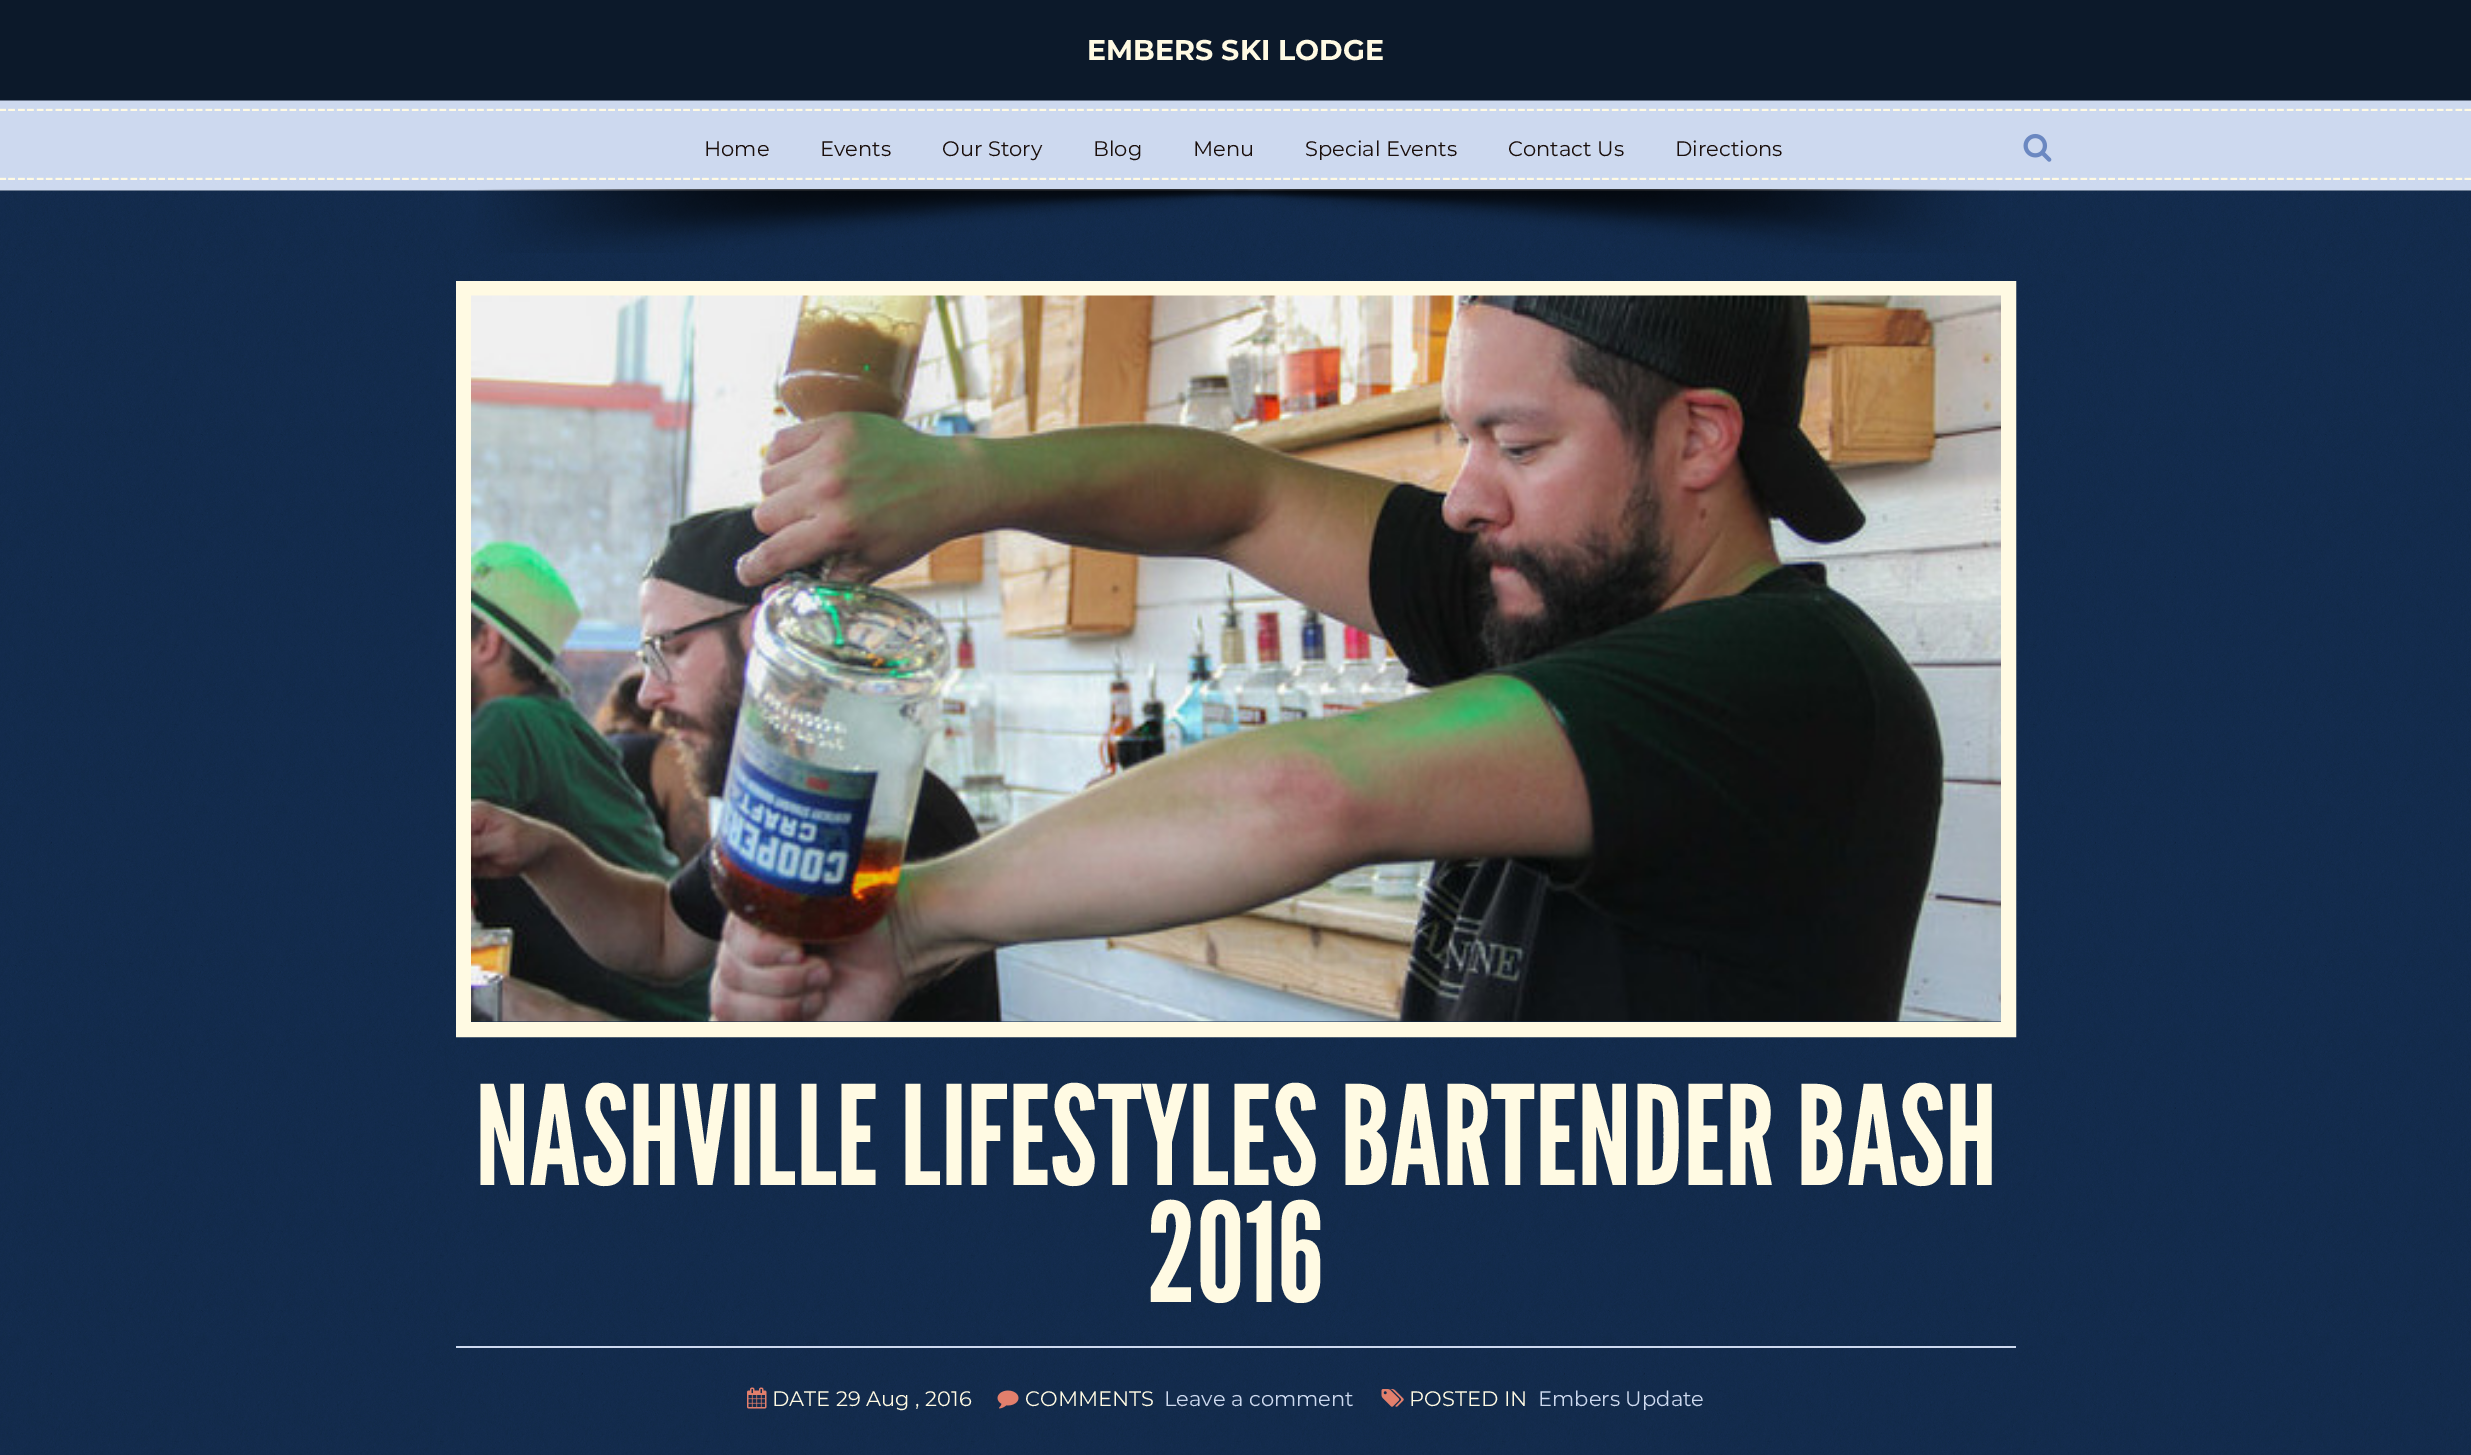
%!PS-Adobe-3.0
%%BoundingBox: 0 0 2471 1455
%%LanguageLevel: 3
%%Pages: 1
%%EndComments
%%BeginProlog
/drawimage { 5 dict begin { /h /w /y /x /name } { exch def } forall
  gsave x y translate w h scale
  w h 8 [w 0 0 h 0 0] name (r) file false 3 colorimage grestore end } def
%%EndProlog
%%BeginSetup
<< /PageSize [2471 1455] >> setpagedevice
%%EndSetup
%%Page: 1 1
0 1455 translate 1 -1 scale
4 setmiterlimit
0.047 0.098 0.165 setrgbcolor
0 0 2471 1455 rectfill
(images/4.raw) 0 190 2471 1265 drawimage
(images/1.raw) 0 100 2471 91 drawimage
(images/2.raw) 2023 133 29 29 drawimage
(images/3.raw) 478 189 1521 64 drawimage
1 0.98 0.89 setrgbcolor
15 setlinewidth
463.5 288.5 1545 741 rectstroke
(images/5.raw) 471 295 1530 727 drawimage
0.804 0.851 0.937 setrgbcolor
456 1346 1560 2 rectfill
(images/6.raw) 747 1387 20 22 drawimage
(images/7.raw) 997 1390 22 19 drawimage
(images/8.raw) 1381 1389 23 18 drawimage
/Montserrat-Bold [28.5 0 0 -28.5 0 0] selectfont
1 0.98 0.89 setrgbcolor
1087 60 moveto (EMBERS SKI LODGE) show
/Montserrat-Regular [21 0 0 -21 0 0] selectfont
0.102 0.059 0.047 setrgbcolor
704 156 moveto (Home) show
820 156 moveto (Events) show
942 156 moveto (Our Story) show
1093 156 moveto (Blog) show
1193 156 moveto (Menu) show
1305 156 moveto (Special Events) show
1508 156 moveto (Contact Us) show
1675 156 moveto (Directions) show
/LeagueGothic-Regular [138 0 0 -138 0 0] selectfont
1 0.98 0.89 setrgbcolor
475 1185 moveto (NASHVILLE LIFESTYLES BARTENDER BASH) show
1147 1302 moveto (2016) show
/Montserrat-Regular [21 0 0 -21 0 0] selectfont
772 1406 moveto (DATE 29 Aug , 2016) show
1025 1406 moveto (COMMENTS) show
0.804 0.851 0.937 setrgbcolor
1164 1406 moveto (Leave a comment) show
1 0.98 0.89 setrgbcolor
1409 1406 moveto (POSTED IN) show
0.804 0.851 0.937 setrgbcolor
1538 1406 moveto (Embers Update) show
showpage
%%EOF
